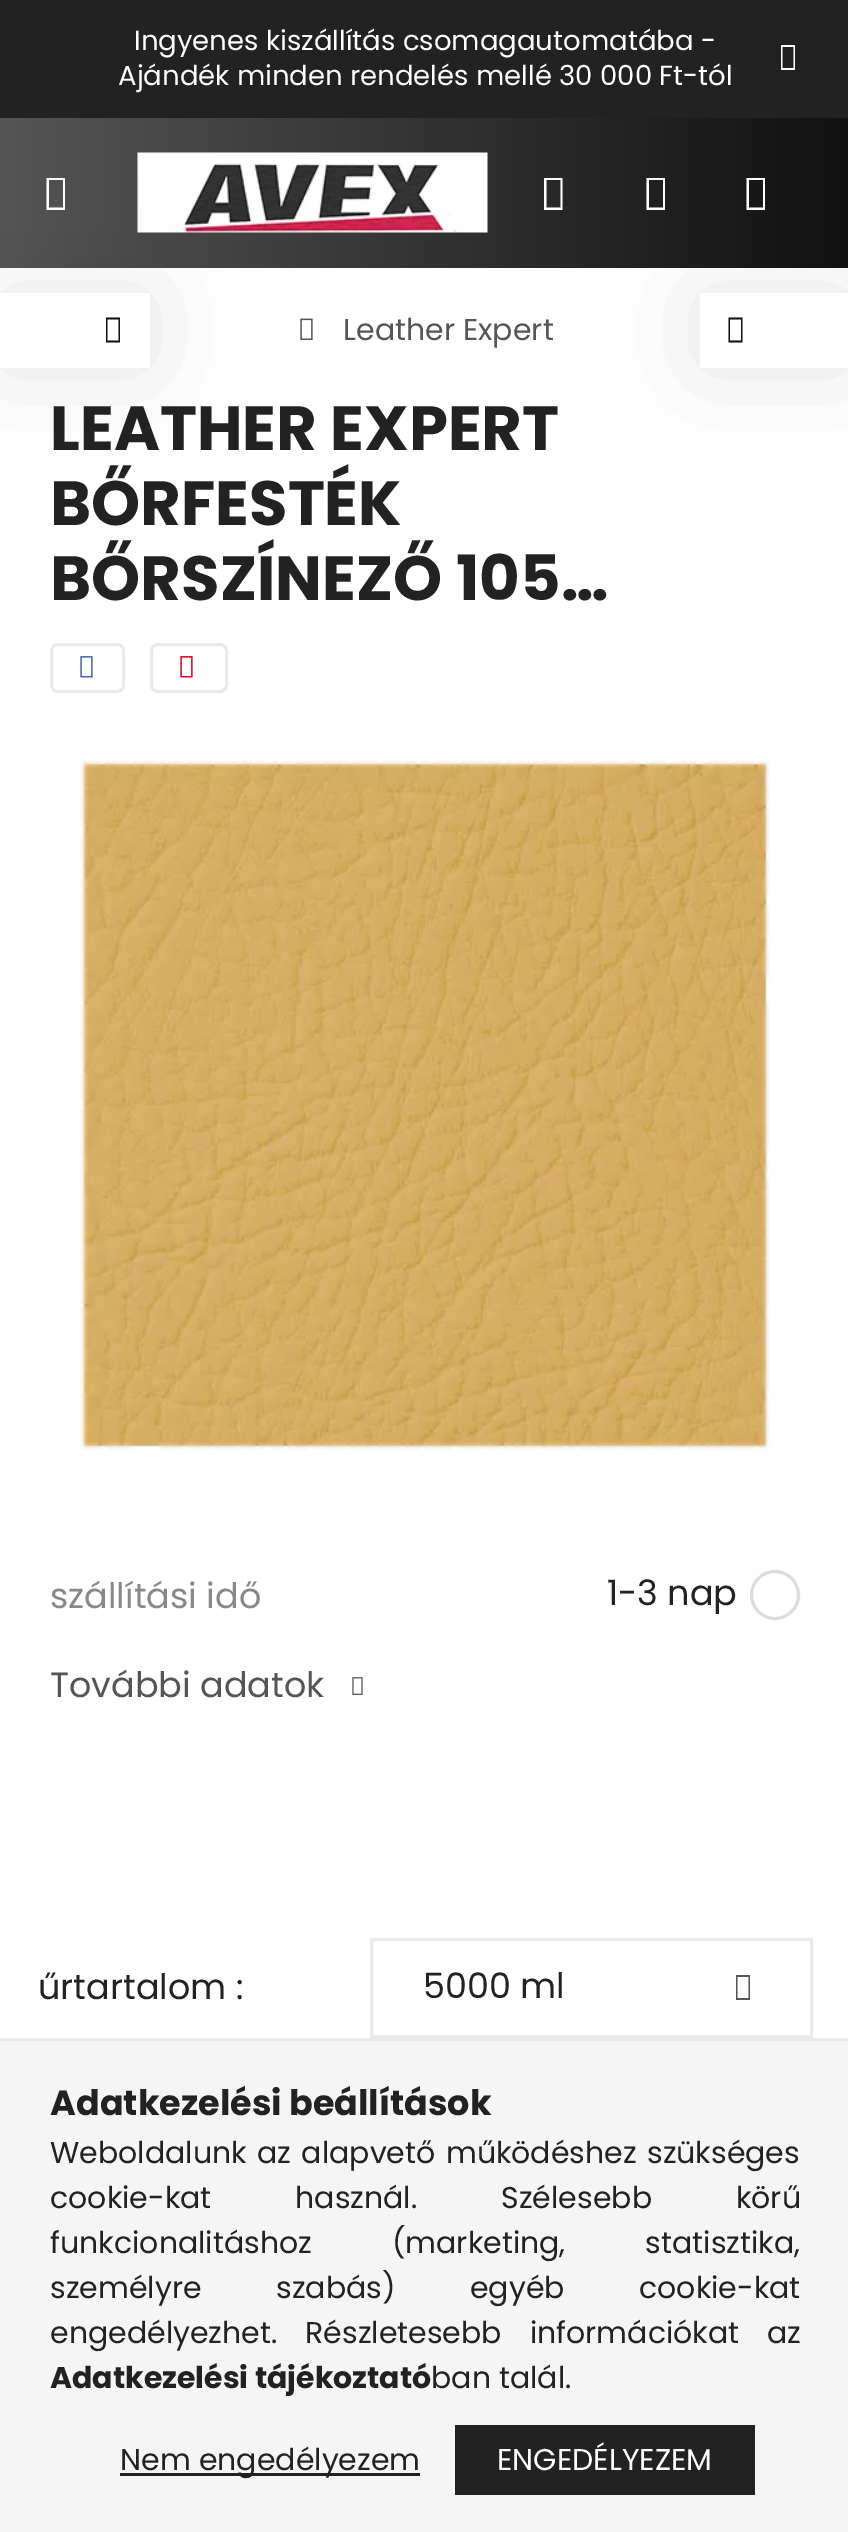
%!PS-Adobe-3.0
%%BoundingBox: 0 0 848 2532
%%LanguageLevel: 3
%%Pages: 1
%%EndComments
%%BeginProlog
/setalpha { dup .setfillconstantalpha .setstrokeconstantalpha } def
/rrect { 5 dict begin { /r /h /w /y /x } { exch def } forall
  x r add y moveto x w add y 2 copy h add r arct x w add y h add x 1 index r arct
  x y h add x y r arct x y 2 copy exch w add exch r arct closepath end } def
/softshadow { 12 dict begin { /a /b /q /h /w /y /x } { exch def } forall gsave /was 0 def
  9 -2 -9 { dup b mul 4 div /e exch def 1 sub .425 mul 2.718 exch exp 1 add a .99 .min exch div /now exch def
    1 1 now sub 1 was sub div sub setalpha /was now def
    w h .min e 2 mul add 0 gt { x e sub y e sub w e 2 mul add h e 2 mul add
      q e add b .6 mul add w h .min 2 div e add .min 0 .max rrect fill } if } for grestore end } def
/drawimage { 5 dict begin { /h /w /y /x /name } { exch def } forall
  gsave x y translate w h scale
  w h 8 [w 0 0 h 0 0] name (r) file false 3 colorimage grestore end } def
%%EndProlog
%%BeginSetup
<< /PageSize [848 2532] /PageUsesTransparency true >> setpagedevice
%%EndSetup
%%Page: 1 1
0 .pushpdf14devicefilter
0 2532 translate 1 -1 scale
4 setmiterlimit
1 setgray
0 0 848 2532 rectfill
0.133 setgray
0 0 848 118 rectfill
1 setgray
newpath 781 70 moveto 781 45 lineto 795 45 lineto 795 70 lineto closepath 782.5 68 moveto 793.5 68 lineto 793.5 47 lineto 782.5 47 lineto closepath fill
gsave newpath 0 118 moveto 848 118 lineto 848 268 lineto 0 268 lineto closepath clip newpath
<< /ShadingType 2 /ColorSpace /DeviceRGB /Coords [0 193 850 192] /Extend [true true] /Function << /FunctionType 2 /Domain [0 1] /C0 [0.333 0.333 0.333] /C1 [0.067 0.067 0.067] /N 1 >> >> shfill grestore
newpath 46.5 210 moveto 46.5 178 lineto 65 178 lineto 65 210 lineto closepath 49 207.5 moveto 63 207.5 lineto 63 180 lineto 49 180 lineto closepath fill
(images/1.raw) 137 152 351 81 drawimage
newpath 544 210 moveto 544 178 lineto 562.5 178 lineto 562.5 210 lineto closepath 546.5 207.5 moveto 560.5 207.5 lineto 560.5 180 lineto 546.5 180 lineto closepath fill
newpath 646.5 210 moveto 646.5 178 lineto 665 178 lineto 665 210 lineto closepath 649 207.5 moveto 663 207.5 lineto 663 180 lineto 649 180 lineto closepath fill
newpath 746.5 210 moveto 746.5 178 lineto 765 178 lineto 765 210 lineto closepath 749 207.5 moveto 763 207.5 lineto 763 180 lineto 749 180 lineto closepath fill
(images/2.raw) 300 318 13 22 drawimage
0 setgray
0 293 150 75 0 50 0.1 softshadow
1 setgray
0 293 150 75 rectfill
0.067 setgray
newpath 106 342.5 moveto 106 317.5 lineto 120 317.5 lineto 120 342.5 lineto closepath 107.5 340.5 moveto 118.5 340.5 lineto 118.5 319.5 lineto 107.5 319.5 lineto closepath fill
0 setgray
700 293 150 75 0 50 0.1 softshadow
1 setgray
700 293 148 75 rectfill
0.067 setgray
newpath 728.5 342.5 moveto 728.5 317.5 lineto 742.5 317.5 lineto 742.5 342.5 lineto closepath 730 340.5 moveto 741 340.5 lineto 741 319.5 lineto 730 319.5 lineto closepath fill
0.918 setgray
3 setlinewidth
51.5 644.5 72 47 6.5 rrect stroke
(images/3.raw) 80 656 13 22 drawimage
151.5 644.5 75 47 6.5 rrect stroke
(images/4.raw) 180 656 13 22 drawimage
(images/5.raw) 80 760 690 690 drawimage
0.867 setgray
newpath 775 1595 23.5 0 360 arc closepath stroke
(images/6.raw) 352 1677 11 18 drawimage
0.918 setgray
371.5 1939.5 440 97 rectstroke
0.333 setgray
newpath 736 2000 moveto 736 1975 lineto 750 1975 lineto 750 2000 lineto closepath 737.5 1998 moveto 748.5 1998 lineto 748.5 1977 lineto 737.5 1977 lineto closepath fill
0.961 setgray
0 2041 848 491 rectfill
0.918 setgray
0 2038 848 3 rectfill
0.133 setgray
120 2473 300 3 rectfill
gsave newpath 455 2425 moveto 755 2425 lineto 755 2495 lineto 455 2495 lineto closepath clip newpath
<< /ShadingType 2 /ColorSpace /DeviceRGB /Coords [-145 2460 755 2460] /Extend [true true] /Function << /FunctionType 3 /Domain [0 1] /Functions [<< /FunctionType 2 /Domain [0 1] /C0 [0.333 0.333 0.333] /C1 [0.067 0.067 0.067] /N 1 >> << /FunctionType 2 /Domain [0 1] /C0 [0.067 0.067 0.067] /C1 [0.133 0.133 0.133] /N 1 >> << /FunctionType 2 /Domain [0 1] /C0 [0.133 0.133 0.133] /C1 [0.133 0.133 0.133] /N 1 >>] /Bounds [0.33 0.67] /Encode [0 1 0 1 0 1] >> >> shfill grestore
/Poppins-Regular [27.5 0 0 -27.5 0 0] selectfont
1 setgray
134 50 moveto (Ingyenes kiszállítás csomagautomatába -) show
118 85 moveto (Ajándék minden rendelés mellé 30 000 Ft-tól) show
/Poppins-Regular [30 0 0 -30 0 0] selectfont
0.333 setgray
343 340 moveto (Leather Expert) show
/Poppins-Bold [62.5 0 0 -62.5 0 0] selectfont
0.133 setgray
50 450 moveto (LEATHER EXPERT) show
50 525 moveto (BŐRFESTÉK) show
50 600 moveto (BŐRSZÍNEZŐ 105…) show
/Poppins-Regular [35 0 0 -35 0 0] selectfont
0.533 setgray
50 1608 moveto (szállítási idő) show
0.133 setgray
607 1605 moveto (1-3 nap) show
0.333 setgray
50 1697 moveto (További adatok) show
0.133 setgray
38 1999 moveto (űrtartalom :) show
423 1998 moveto (5000 ml) show
/Poppins-Bold [35 0 0 -35 0 0] selectfont
50 2115 moveto (Adatkezelési beállítások) show
/Poppins-Regular [30 0 0 -30 0 0] selectfont
50 2163 moveto 2.5 0 32 (Weboldalunk az alapvető működéshez szükséges) widthshow
50 2208 moveto 76 0 32 (cookie-kat használ. Szélesebb körű) widthshow
50 2253 moveto 72 0 32 (funkcionalitáshoz \(marketing, statisztika,) widthshow
50 2298 moveto 66.5 0 32 (személyre szabás\) egyéb cookie-kat) widthshow
50 2343 moveto 20 0 32 (engedélyezhet. Részletesebb információkat az) widthshow
/Poppins-Bold [30 0 0 -30 0 0] selectfont
50 2388 moveto (Adatkezelési tájékoztató) show
/Poppins-Regular [30 0 0 -30 0 0] selectfont
431 2388 moveto (ban talál.) show
120 2470 moveto (Nem engedélyezem) show
1 setgray
497 2470 moveto (ENGEDÉLYEZEM) show
.poppdf14devicefilter showpage
%%EOF
